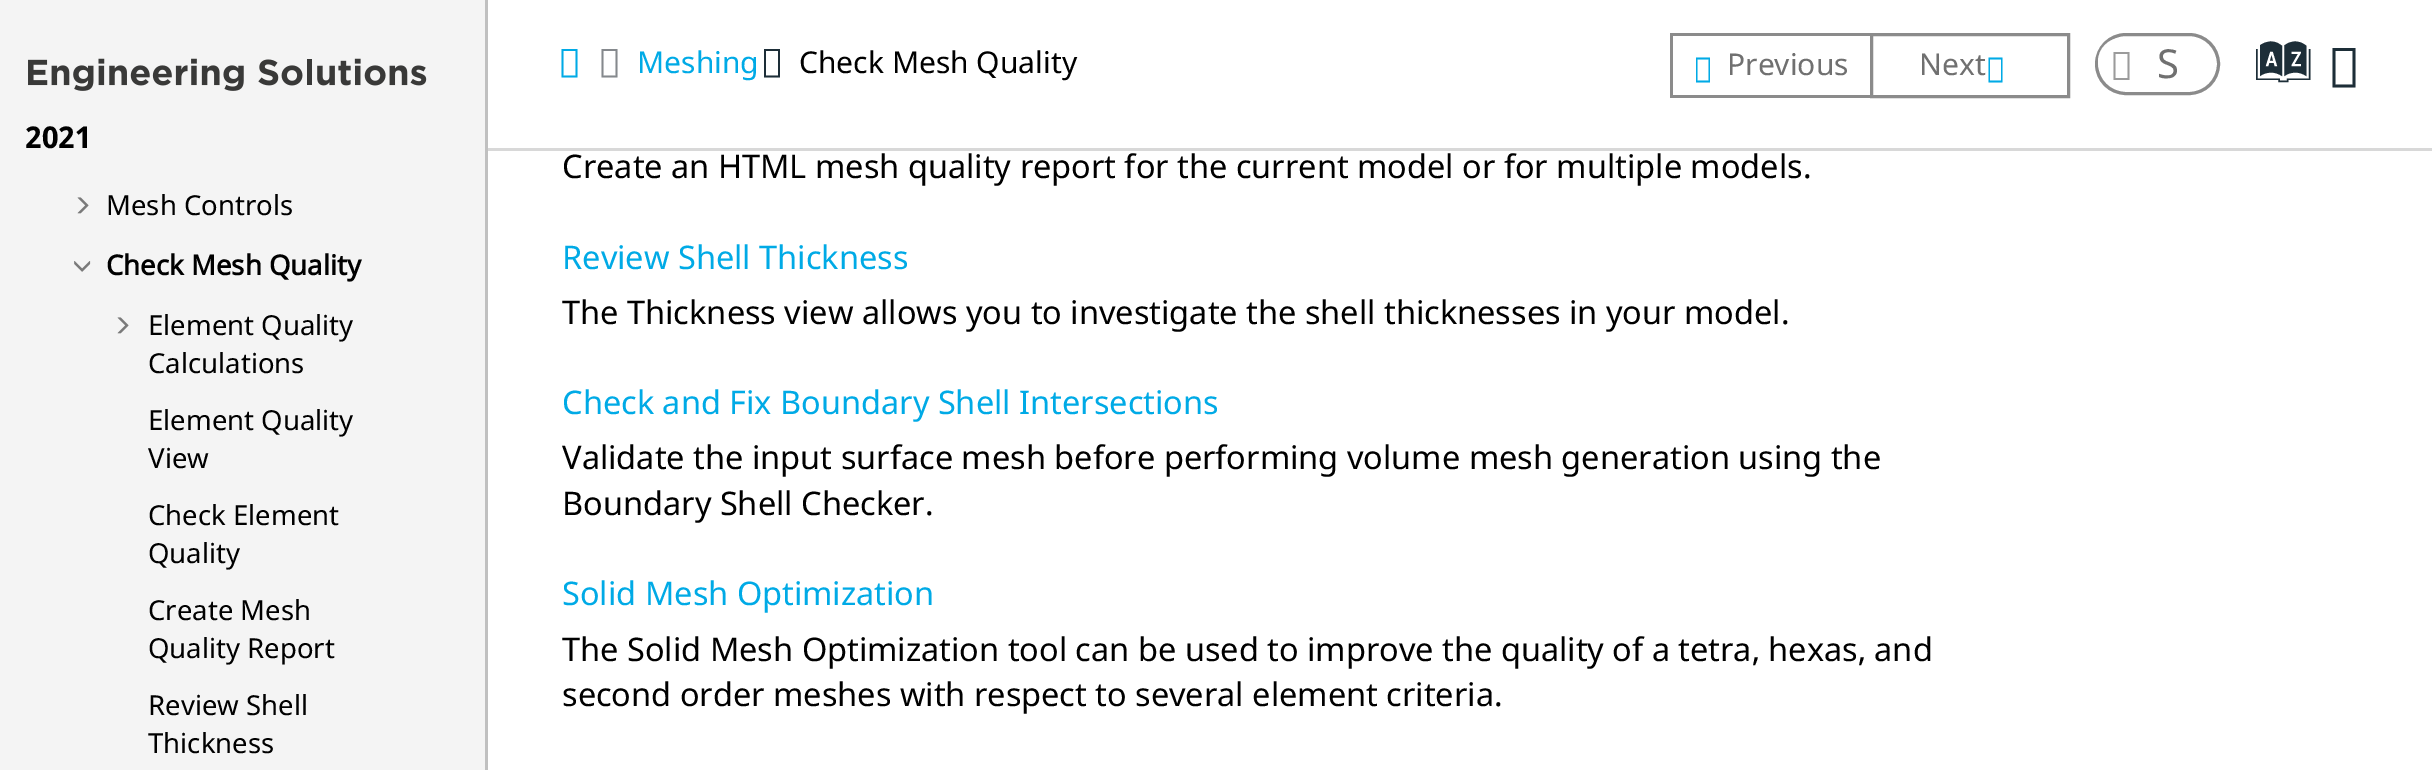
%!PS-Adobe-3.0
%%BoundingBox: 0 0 2432 770
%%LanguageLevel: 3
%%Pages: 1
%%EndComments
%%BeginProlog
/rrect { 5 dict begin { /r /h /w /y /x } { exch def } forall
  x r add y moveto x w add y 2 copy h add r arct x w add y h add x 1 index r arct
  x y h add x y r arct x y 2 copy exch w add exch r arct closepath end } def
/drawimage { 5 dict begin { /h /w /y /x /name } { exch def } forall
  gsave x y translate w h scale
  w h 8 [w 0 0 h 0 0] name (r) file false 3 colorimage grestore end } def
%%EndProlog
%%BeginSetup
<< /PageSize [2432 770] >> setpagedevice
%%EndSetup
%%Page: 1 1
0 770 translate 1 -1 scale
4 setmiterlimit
1 setgray
0 0 2432 770 rectfill
0.957 setgray
0 0 485 770 rectfill
0.753 setgray
485 0 3 770 rectfill
(images/1.raw) 28 58 399 33 drawimage
(images/2.raw) 77 197 12 17 drawimage
(images/3.raw) 74 261 17 11 drawimage
(images/2.raw) 117 317 12 17 drawimage
0.847 setgray
488 148 1944 3 rectfill
0 0.667 0.902 setrgbcolor
newpath 561.5 77.5 moveto 561.5 49 lineto 577.5 49 lineto 577.5 77.5 lineto closepath 563.5 75.5 moveto 575.5 75.5 lineto 575.5 51 lineto 563.5 51 lineto closepath fill
0.522 0.537 0.553 setrgbcolor
newpath 601.5 77.5 moveto 601.5 49 lineto 617.5 49 lineto 617.5 77.5 lineto closepath 603.5 75.5 moveto 615.5 75.5 lineto 615.5 51 lineto 603.5 51 lineto closepath fill
0.114 0.18 0.22 setrgbcolor
newpath 764 77.5 moveto 764 49 lineto 780 49 lineto 780 77.5 lineto closepath 766 75.5 moveto 778 75.5 lineto 778 51 lineto 766 51 lineto closepath fill
0.545 setgray
1670 33 200 3 rectfill
1670 95 200 3 rectfill
1670 33 3 65 rectfill
0 0.667 0.902 setrgbcolor
newpath 1696 82.5 moveto 1696 57.5 lineto 1710 57.5 lineto 1710 82.5 lineto closepath 1697.5 80.5 moveto 1708.5 80.5 lineto 1708.5 59.5 lineto 1697.5 59.5 lineto closepath fill
0.545 setgray
3 setlinewidth
1871.5 34.5 197 62 rectstroke
0 0.667 0.902 setrgbcolor
newpath 1988.5 82.5 moveto 1988.5 57.5 lineto 2002.5 57.5 lineto 2002.5 82.5 lineto closepath 1990 80.5 moveto 2001 80.5 lineto 2001 59.5 lineto 1990 59.5 lineto closepath fill
0.545 setgray
2096.5 34.5 122 59 29.5 rrect stroke
1 setgray
2098 38 50 47 23.5 rrect fill
0.608 setgray
newpath 2113.5 80 moveto 2113.5 52 lineto 2129.5 52 lineto 2129.5 80 lineto closepath 2115.5 78 moveto 2127.5 78 lineto 2127.5 54 lineto 2115.5 54 lineto closepath fill
0.114 0.18 0.22 setrgbcolor
newpath 2332.5 87.5 moveto 2332.5 48 lineto 2355.5 48 lineto 2355.5 87.5 lineto closepath 2335.5 84.5 moveto 2352.5 84.5 lineto 2352.5 51 lineto 2335.5 51 lineto closepath fill
/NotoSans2-Bold [30 0 0 -30 0 0] selectfont
0 setgray
25 148 moveto (2021) show
/NotoSans-Regular [27.5 0 0 -27.5 0 0] selectfont
106 215 moveto (Mesh Controls) show
/NotoSans-Bold [27.5 0 0 -27.5 0 0] selectfont
106 275 moveto (Check Mesh Quality) show
/NotoSans-Regular [27.5 0 0 -27.5 0 0] selectfont
148 335 moveto (Element Quality) show
148 373 moveto (Calculations) show
148 430 moveto (Element Quality) show
148 468 moveto (View) show
148 525 moveto (Check Element) show
148 563 moveto (Quality) show
148 620 moveto (Create Mesh) show
148 658 moveto (Quality Report) show
148 715 moveto (Review Shell) show
148 753 moveto (Thickness) show
/NotoSans-Regular [30 0 0 -30 0 0] selectfont
0 0.667 0.902 setrgbcolor
637 73 moveto (Meshing) show
0 setgray
799 73 moveto (Check Mesh Quality) show
0.439 setgray
1727 75 moveto (Previous) show
1919 75 moveto (Next) show
/NotoSans-Regular [40 0 0 -40 0 0] selectfont
2157 78 moveto (S) show
/Oxygen-Regular [58 0 0 -58 0 0] selectfont
0.114 0.18 0.22 setrgbcolor
2262 89 moveto (a) show
/NotoSans-Regular [32.5 0 0 -32.5 0 0] selectfont
0 setgray
562 178 moveto (Create an HTML mesh quality report for the current model or for multiple models.) show
0 0.667 0.902 setrgbcolor
562 269 moveto (Review Shell Thickness) show
0 setgray
562 324 moveto (The Thickness view allows you to investigate the shell thicknesses in your model.) show
0 0.667 0.902 setrgbcolor
562 414 moveto (Check and Fix Boundary Shell Intersections) show
0 setgray
562 469 moveto (Validate the input surface mesh before performing volume mesh generation using the) show
562 515 moveto (Boundary Shell Checker.) show
0 0.667 0.902 setrgbcolor
562 605 moveto (Solid Mesh Optimization) show
0 setgray
562 661 moveto (The Solid Mesh Optimization tool can be used to improve the quality of a tetra, hexas, and) show
562 706 moveto (second order meshes with respect to several element criteria.) show
showpage
%%EOF
